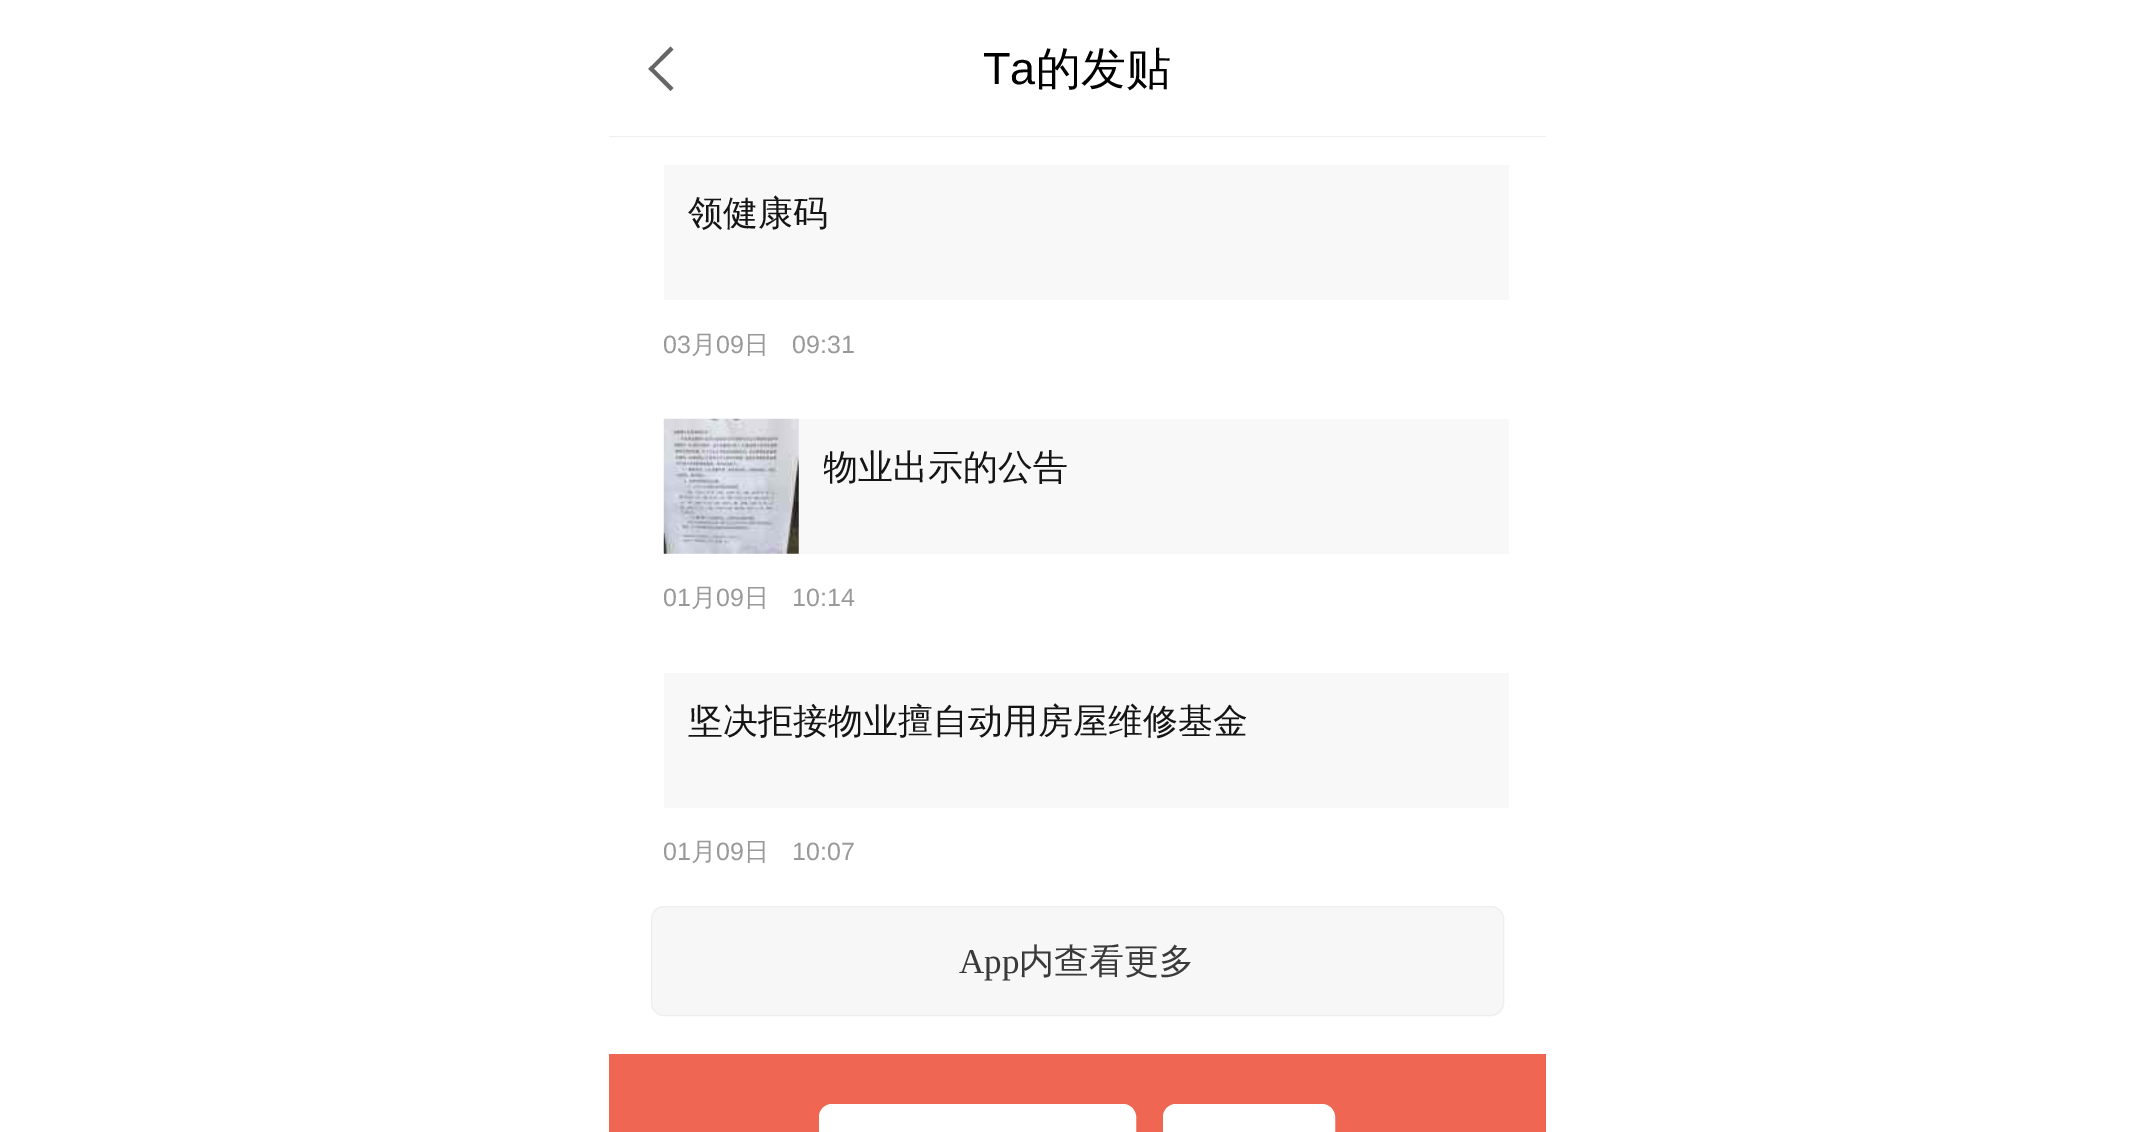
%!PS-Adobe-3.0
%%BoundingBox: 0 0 2153 1132
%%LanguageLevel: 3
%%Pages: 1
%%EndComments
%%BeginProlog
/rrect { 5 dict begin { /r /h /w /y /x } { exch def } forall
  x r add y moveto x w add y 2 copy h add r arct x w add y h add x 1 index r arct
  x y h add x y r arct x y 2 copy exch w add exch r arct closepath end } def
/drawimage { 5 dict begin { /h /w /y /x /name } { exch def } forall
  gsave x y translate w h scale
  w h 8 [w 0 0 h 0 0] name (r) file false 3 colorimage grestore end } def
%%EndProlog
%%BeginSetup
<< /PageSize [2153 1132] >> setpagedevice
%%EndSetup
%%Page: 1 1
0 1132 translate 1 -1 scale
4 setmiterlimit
1 setgray
0 0 2153 1132 rectfill
0.4 setgray
newpath 651 66 moveto 673.5 88 lineto 670.5 91 lineto 648.5 69 lineto closepath fill
newpath 670.5 46.5 moveto 673.5 49.5 lineto 651 71.5 lineto 648.5 69 lineto closepath fill
0.933 setgray
609 136 937 1 rectfill
0.973 setgray
664 165 845 135 rectfill
664 419 845 135 rectfill
(images/1.raw) 663 418 136 136 drawimage
664 673 845 135 rectfill
0.969 setgray
651.5 906.5 852 109 12.5 rrect gsave fill grestore
0.933 setgray
stroke
0.937 0.404 0.325 setrgbcolor
609 1054 937 78 rectfill
1 setgray
819.5 1104.5 316 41 12.5 rrect gsave fill grestore
stroke
1163.5 1104.5 171 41 12.5 rrect gsave fill grestore
stroke
/LiberationSans-Regular [45 0 0 -45 0 0] selectfont
0 setgray
983 84 moveto (Ta) show
/WenQuanYiZenHei-Medium [45 0 0 -45 0 0] selectfont
1036 84 moveto (的发贴) show
/WenQuanYiZenHei-Medium [35 0 0 -35 0 0] selectfont
0.082 setgray
688 225 moveto (领健康码) show
/LiberationSans-Regular [25 0 0 -25 0 0] selectfont
0.6 setgray
663 353 moveto (03) show
/WenQuanYiZenHei-Medium [25 0 0 -25 0 0] selectfont
691 353 moveto (月) show
/LiberationSans-Regular [25 0 0 -25 0 0] selectfont
716 353 moveto (09) show
/WenQuanYiZenHei-Medium [25 0 0 -25 0 0] selectfont
744 353 moveto (日) show
/LiberationSans-Regular [25 0 0 -25 0 0] selectfont
792 353 moveto (09:31) show
gsave
824 444 635 97 rectclip
/WenQuanYiZenHei-Medium [35 0 0 -35 0 0] selectfont
0.082 setgray
823 479 moveto (物业出示的公告) show
grestore
663 606 moveto (01) show
/WenQuanYiZenHei-Medium [25 0 0 -25 0 0] selectfont
691 606 moveto (月) show
/LiberationSans-Regular [25 0 0 -25 0 0] selectfont
716 606 moveto (09) show
/WenQuanYiZenHei-Medium [25 0 0 -25 0 0] selectfont
744 606 moveto (日) show
/LiberationSans-Regular [25 0 0 -25 0 0] selectfont
792 606 moveto (10:14) show
/WenQuanYiZenHei-Medium [35 0 0 -35 0 0] selectfont
0.082 setgray
688 733 moveto (坚决拒接物业擅自动用房屋维修基金) show
/LiberationSans-Regular [25 0 0 -25 0 0] selectfont
0.6 setgray
663 860 moveto (01) show
/WenQuanYiZenHei-Medium [25 0 0 -25 0 0] selectfont
691 860 moveto (月) show
/LiberationSans-Regular [25 0 0 -25 0 0] selectfont
716 860 moveto (09) show
/WenQuanYiZenHei-Medium [25 0 0 -25 0 0] selectfont
744 860 moveto (日) show
/LiberationSans-Regular [25 0 0 -25 0 0] selectfont
792 860 moveto (10:07) show
/LiberationSerif-Regular [35 0 0 -35 0 0] selectfont
0.227 setgray
959 973 moveto (App) show
/WenQuanYiZenHei-Medium [35 0 0 -35 0 0] selectfont
1019 973 moveto (内查看更多) show
showpage
%%EOF
